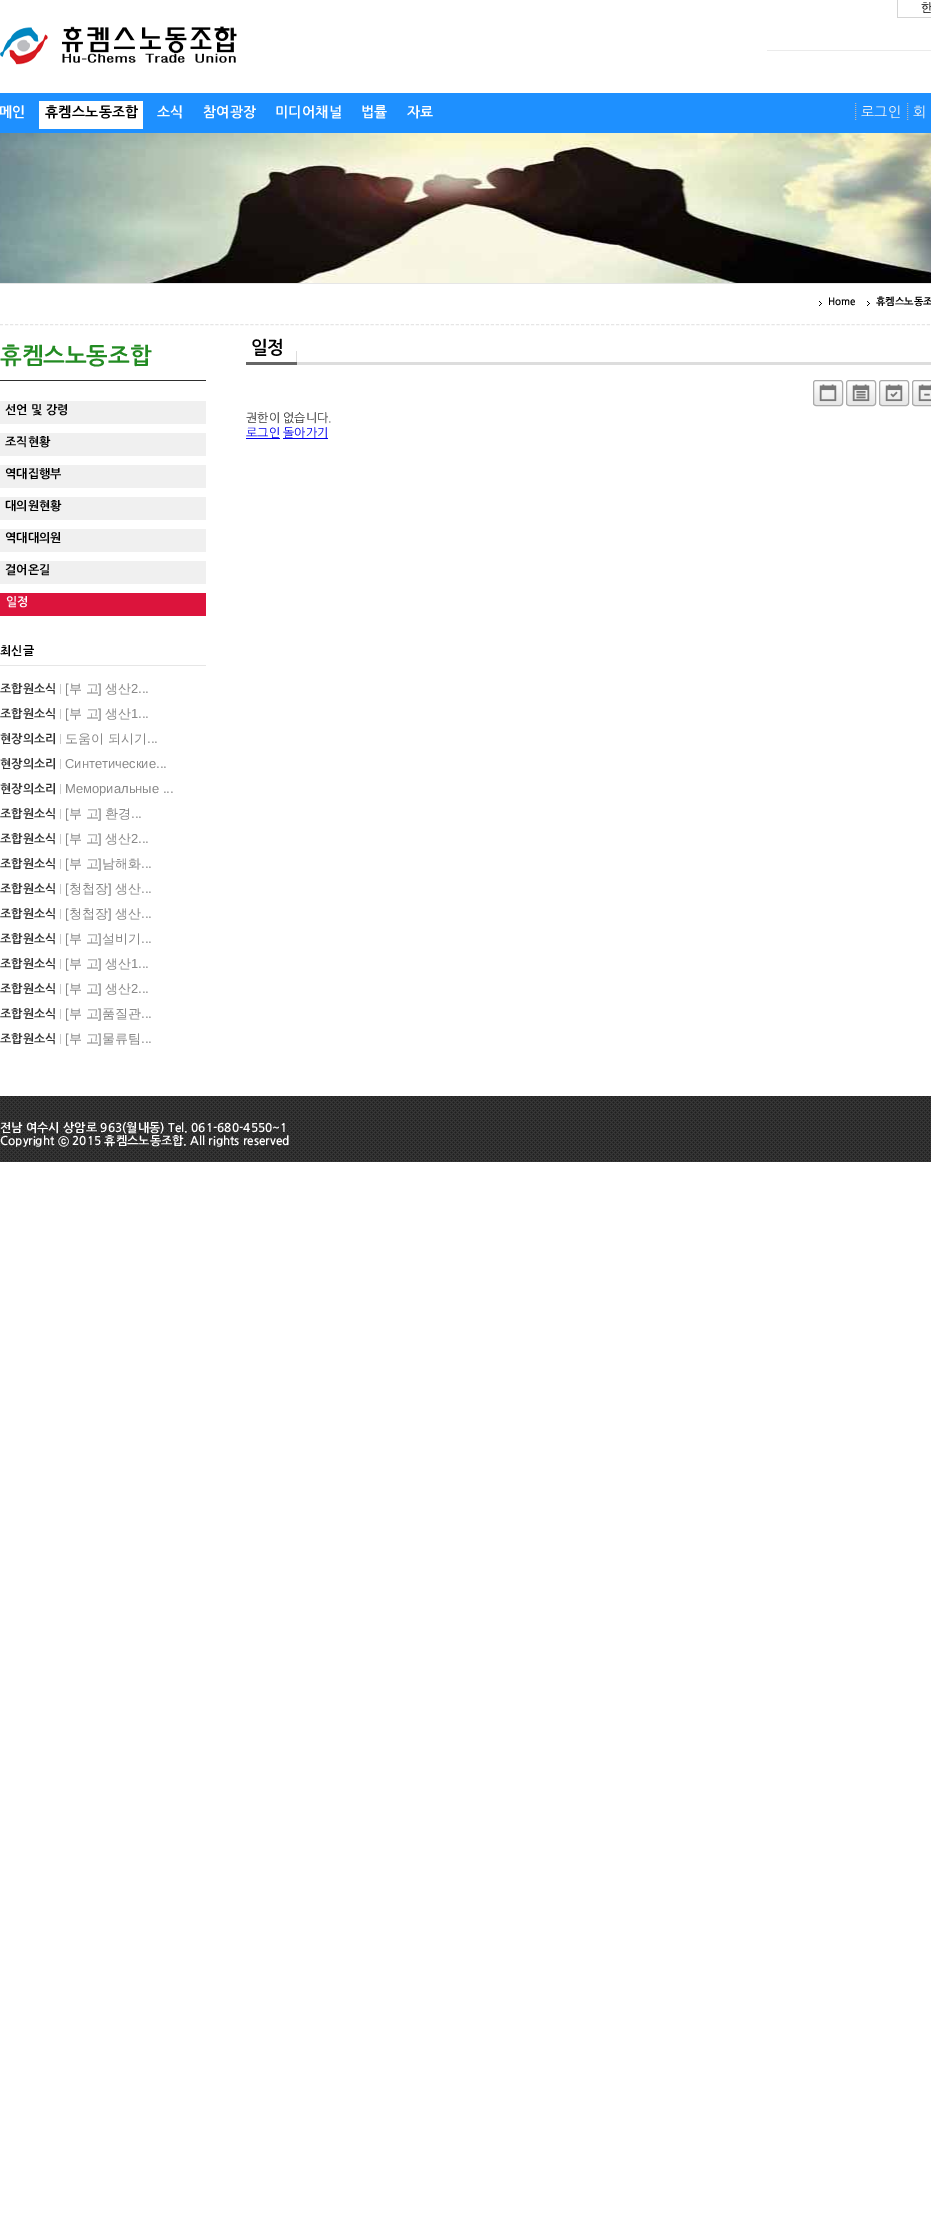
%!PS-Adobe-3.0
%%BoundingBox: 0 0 931 2239
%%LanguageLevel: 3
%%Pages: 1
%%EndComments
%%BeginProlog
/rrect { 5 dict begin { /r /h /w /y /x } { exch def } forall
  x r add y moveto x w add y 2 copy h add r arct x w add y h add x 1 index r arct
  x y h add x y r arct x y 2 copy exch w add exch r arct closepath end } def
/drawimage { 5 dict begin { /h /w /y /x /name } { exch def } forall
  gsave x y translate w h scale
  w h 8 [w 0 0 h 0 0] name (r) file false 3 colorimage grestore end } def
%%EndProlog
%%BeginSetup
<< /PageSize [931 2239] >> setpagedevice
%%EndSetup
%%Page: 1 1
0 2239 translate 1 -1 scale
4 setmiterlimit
1 setgray
0 0 931 2239 rectfill
0.831 setgray
897 17 34 1 rectfill
897 0 1 18 rectfill
(images/1.raw) 0 26 237 39 drawimage
0.922 setgray
767 50 164 1 rectfill
0.118 0.565 1 setrgbcolor
0 93 931 40 rectfill
1 setgray
39 101 104 28 rectfill
0.722 setgray
[1 1] 0 setdash
newpath 855.5 103 moveto 855.5 121 lineto stroke
newpath 907.5 103 moveto 907.5 121 lineto stroke
(images/2.raw) 0 133 931 150 drawimage
0.902 setgray
0 283 931 1 rectfill
[3 2.01] 0 setdash
newpath 0 324.5 moveto 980 324.5 lineto stroke
(images/3.raw) 819 301 3 5 drawimage
(images/3.raw) 867 301 3 5 drawimage
0.18 setgray
0 380 206 1 rectfill
0.941 setgray
0 401 206 23 rectfill
0 433 206 23 rectfill
0 465 206 23 rectfill
0 497 206 23 rectfill
0 529 206 23 rectfill
0 561 206 23 rectfill
0.863 0.078 0.235 setrgbcolor
0 593 206 23 rectfill
0.902 setgray
0 665 206 1 rectfill
0.8 setgray
60 684 1 10 rectfill
60 709 1 10 rectfill
60 734 1 10 rectfill
60 759 1 10 rectfill
60 784 1 10 rectfill
60 809 1 10 rectfill
60 834 1 10 rectfill
60 859 1 10 rectfill
60 884 1 10 rectfill
60 909 1 10 rectfill
60 934 1 10 rectfill
60 959 1 10 rectfill
60 984 1 10 rectfill
60 1009 1 10 rectfill
60 1034 1 10 rectfill
0.867 setgray
297 362 634 3 rectfill
296 351 1 11 rectfill
0.4 setgray
246 362 51 3 rectfill
gsave
813 380 30 26 3 rrect clip newpath
gsave newpath 813 381 moveto 843 381 lineto 843 405 lineto 813 405 lineto closepath clip newpath
<< /ShadingType 2 /ColorSpace /DeviceRGB /Coords [828 381 828 405] /Extend [true true] /Function << /FunctionType 2 /Domain [0 1] /C0 [1 1 1] /C1 [0.902 0.902 0.902] /N 1 >> >> shfill grestore
grestore
0.667 setgray
[] 0 setdash
813.5 380.5 29 25 2.5 rrect stroke
(images/4.raw) 819 384 18 18 drawimage
gsave
846 380 30 26 3 rrect clip newpath
gsave newpath 846 381 moveto 876 381 lineto 876 405 lineto 846 405 lineto closepath clip newpath
<< /ShadingType 2 /ColorSpace /DeviceRGB /Coords [861 381 861 405] /Extend [true true] /Function << /FunctionType 2 /Domain [0 1] /C0 [1 1 1] /C1 [0.902 0.902 0.902] /N 1 >> >> shfill grestore
grestore
846.5 380.5 29 25 2.5 rrect stroke
(images/5.raw) 852 384 18 18 drawimage
gsave
879 380 30 26 3 rrect clip newpath
gsave newpath 879 381 moveto 909 381 lineto 909 405 lineto 879 405 lineto closepath clip newpath
<< /ShadingType 2 /ColorSpace /DeviceRGB /Coords [894 381 894 405] /Extend [true true] /Function << /FunctionType 2 /Domain [0 1] /C0 [1 1 1] /C1 [0.902 0.902 0.902] /N 1 >> >> shfill grestore
grestore
879.5 380.5 29 25 2.5 rrect stroke
(images/6.raw) 885 384 18 18 drawimage
gsave
912 380 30 26 3 rrect clip newpath
gsave newpath 912 381 moveto 931 381 lineto 931 405 lineto 912 405 lineto closepath clip newpath
<< /ShadingType 2 /ColorSpace /DeviceRGB /Coords [927 381 927 405] /Extend [true true] /Function << /FunctionType 2 /Domain [0 1] /C0 [1 1 1] /C1 [0.902 0.902 0.902] /N 1 >> >> shfill grestore
grestore
912.5 380.5 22 25 2.5 rrect stroke
(images/7.raw) 918 384 13 18 drawimage
0 0 0.933 setrgbcolor
246 438 34 1 rectfill
283 438 45 1 rectfill
(images/8.raw) 0 1096 931 66 drawimage
/NanumGothic-Regular [12 0 0 -12 0 0] selectfont
0 setgray
921 12 moveto (한) show
/NanumGothic-Bold [14 0 0 -14 0 0] selectfont
1 setgray
-1 117 moveto 0.25 0 (메인) ashow
0 setgray
45 117 moveto 0.25 0 (휴켐스노동조합) ashow
1 setgray
157 117 moveto 0.25 0 (소식) ashow
203 117 moveto 0.25 0 (참여광장) ashow
275 117 moveto 0.25 0 (미디어채널) ashow
361 117 moveto 0.25 0 (법률) ashow
407 117 moveto 0.25 0 (자료) ashow
/NanumGothic-Regular [14 0 0 -14 0 0] selectfont
0.961 setgray
861 117 moveto 0.25 0 (로그인) ashow
913 117 moveto 0.25 0 (회) ashow
/NanumGothic-Bold [10 0 0 -10 0 0] selectfont
0 setgray
828 305 moveto (Home) show
876 305 moveto (휴켐스노동조) show
/NanumGothic-Bold [23 0 0 -23 0 0] selectfont
0.133 0.545 0.133 setrgbcolor
0 364 moveto (휴켐스노동조합) show
/NanumGothic-Bold [12 0 0 -12 0 0] selectfont
0 setgray
5 414 moveto (선언 및 강령) show
5 446 moveto (조직현황) show
5 478 moveto (역대집행부) show
5 510 moveto (대의원현황) show
5 542 moveto (역대대의원) show
5 574 moveto (걸어온길) show
1 setgray
6 606 moveto (일정) show
0 setgray
0 655 moveto (최신글) show
0.2 setgray
0 693 moveto (조합원소식) show
/LiberationSans-Regular [13 0 0 -13 0 0] selectfont
0.533 setgray
65 693 moveto ([) show
/WenQuanYiZenHei-Medium [13 0 0 -13 0 0] selectfont
69 693 moveto (부 고) show
/LiberationSans-Regular [13 0 0 -13 0 0] selectfont
98 693 moveto (]) show
/WenQuanYiZenHei-Medium [13 0 0 -13 0 0] selectfont
105 693 moveto (생산) show
/LiberationSans-Regular [13 0 0 -13 0 0] selectfont
131 693 moveto (2...) show
/NanumGothic-Bold [12 0 0 -12 0 0] selectfont
0.2 setgray
0 718 moveto (조합원소식) show
/LiberationSans-Regular [13 0 0 -13 0 0] selectfont
0.533 setgray
65 718 moveto ([) show
/WenQuanYiZenHei-Medium [13 0 0 -13 0 0] selectfont
69 718 moveto (부 고) show
/LiberationSans-Regular [13 0 0 -13 0 0] selectfont
98 718 moveto (]) show
/WenQuanYiZenHei-Medium [13 0 0 -13 0 0] selectfont
105 718 moveto (생산) show
/LiberationSans-Regular [13 0 0 -13 0 0] selectfont
131 718 moveto (1...) show
/NanumGothic-Bold [12 0 0 -12 0 0] selectfont
0.2 setgray
0 743 moveto (현장의소리) show
/WenQuanYiZenHei-Medium [13 0 0 -13 0 0] selectfont
0.533 setgray
65 743 moveto (도움이 되시기) show
/LiberationSans-Regular [13 0 0 -13 0 0] selectfont
147 743 moveto (...) show
/NanumGothic-Bold [12 0 0 -12 0 0] selectfont
0.2 setgray
0 768 moveto (현장의소리) show
/LiberationSans-Regular [13 0 0 -13 0 0] selectfont
0.533 setgray
65 768 moveto (Синтетические...) show
/NanumGothic-Bold [12 0 0 -12 0 0] selectfont
0.2 setgray
0 793 moveto (현장의소리) show
/LiberationSans-Regular [13 0 0 -13 0 0] selectfont
0.533 setgray
65 793 moveto (Мемориальные ...) show
/NanumGothic-Bold [12 0 0 -12 0 0] selectfont
0.2 setgray
0 818 moveto (조합원소식) show
/LiberationSans-Regular [13 0 0 -13 0 0] selectfont
0.533 setgray
65 818 moveto ([) show
/WenQuanYiZenHei-Medium [13 0 0 -13 0 0] selectfont
69 818 moveto (부 고) show
/LiberationSans-Regular [13 0 0 -13 0 0] selectfont
98 818 moveto (]) show
/WenQuanYiZenHei-Medium [13 0 0 -13 0 0] selectfont
105 818 moveto (환경) show
/LiberationSans-Regular [13 0 0 -13 0 0] selectfont
131 818 moveto (...) show
/NanumGothic-Bold [12 0 0 -12 0 0] selectfont
0.2 setgray
0 843 moveto (조합원소식) show
/LiberationSans-Regular [13 0 0 -13 0 0] selectfont
0.533 setgray
65 843 moveto ([) show
/WenQuanYiZenHei-Medium [13 0 0 -13 0 0] selectfont
69 843 moveto (부 고) show
/LiberationSans-Regular [13 0 0 -13 0 0] selectfont
98 843 moveto (]) show
/WenQuanYiZenHei-Medium [13 0 0 -13 0 0] selectfont
105 843 moveto (생산) show
/LiberationSans-Regular [13 0 0 -13 0 0] selectfont
131 843 moveto (2...) show
/NanumGothic-Bold [12 0 0 -12 0 0] selectfont
0.2 setgray
0 868 moveto (조합원소식) show
/LiberationSans-Regular [13 0 0 -13 0 0] selectfont
0.533 setgray
65 868 moveto ([) show
/WenQuanYiZenHei-Medium [13 0 0 -13 0 0] selectfont
69 868 moveto (부 고) show
/LiberationSans-Regular [13 0 0 -13 0 0] selectfont
98 868 moveto (]) show
/WenQuanYiZenHei-Medium [13 0 0 -13 0 0] selectfont
102 868 moveto (남해화) show
/LiberationSans-Regular [13 0 0 -13 0 0] selectfont
141 868 moveto (...) show
/NanumGothic-Bold [12 0 0 -12 0 0] selectfont
0.2 setgray
0 893 moveto (조합원소식) show
/LiberationSans-Regular [13 0 0 -13 0 0] selectfont
0.533 setgray
65 893 moveto ([) show
/WenQuanYiZenHei-Medium [13 0 0 -13 0 0] selectfont
69 893 moveto (청첩장) show
/LiberationSans-Regular [13 0 0 -13 0 0] selectfont
108 893 moveto (]) show
/WenQuanYiZenHei-Medium [13 0 0 -13 0 0] selectfont
115 893 moveto (생산) show
/LiberationSans-Regular [13 0 0 -13 0 0] selectfont
141 893 moveto (...) show
/NanumGothic-Bold [12 0 0 -12 0 0] selectfont
0.2 setgray
0 918 moveto (조합원소식) show
/LiberationSans-Regular [13 0 0 -13 0 0] selectfont
0.533 setgray
65 918 moveto ([) show
/WenQuanYiZenHei-Medium [13 0 0 -13 0 0] selectfont
69 918 moveto (청첩장) show
/LiberationSans-Regular [13 0 0 -13 0 0] selectfont
108 918 moveto (]) show
/WenQuanYiZenHei-Medium [13 0 0 -13 0 0] selectfont
115 918 moveto (생산) show
/LiberationSans-Regular [13 0 0 -13 0 0] selectfont
141 918 moveto (...) show
/NanumGothic-Bold [12 0 0 -12 0 0] selectfont
0.2 setgray
0 943 moveto (조합원소식) show
/LiberationSans-Regular [13 0 0 -13 0 0] selectfont
0.533 setgray
65 943 moveto ([) show
/WenQuanYiZenHei-Medium [13 0 0 -13 0 0] selectfont
69 943 moveto (부 고) show
/LiberationSans-Regular [13 0 0 -13 0 0] selectfont
98 943 moveto (]) show
/WenQuanYiZenHei-Medium [13 0 0 -13 0 0] selectfont
102 943 moveto (설비기) show
/LiberationSans-Regular [13 0 0 -13 0 0] selectfont
141 943 moveto (...) show
/NanumGothic-Bold [12 0 0 -12 0 0] selectfont
0.2 setgray
0 968 moveto (조합원소식) show
/LiberationSans-Regular [13 0 0 -13 0 0] selectfont
0.533 setgray
65 968 moveto ([) show
/WenQuanYiZenHei-Medium [13 0 0 -13 0 0] selectfont
69 968 moveto (부 고) show
/LiberationSans-Regular [13 0 0 -13 0 0] selectfont
98 968 moveto (]) show
/WenQuanYiZenHei-Medium [13 0 0 -13 0 0] selectfont
105 968 moveto (생산) show
/LiberationSans-Regular [13 0 0 -13 0 0] selectfont
131 968 moveto (1...) show
/NanumGothic-Bold [12 0 0 -12 0 0] selectfont
0.2 setgray
0 993 moveto (조합원소식) show
/LiberationSans-Regular [13 0 0 -13 0 0] selectfont
0.533 setgray
65 993 moveto ([) show
/WenQuanYiZenHei-Medium [13 0 0 -13 0 0] selectfont
69 993 moveto (부 고) show
/LiberationSans-Regular [13 0 0 -13 0 0] selectfont
98 993 moveto (]) show
/WenQuanYiZenHei-Medium [13 0 0 -13 0 0] selectfont
105 993 moveto (생산) show
/LiberationSans-Regular [13 0 0 -13 0 0] selectfont
131 993 moveto (2...) show
/NanumGothic-Bold [12 0 0 -12 0 0] selectfont
0.2 setgray
0 1018 moveto (조합원소식) show
/LiberationSans-Regular [13 0 0 -13 0 0] selectfont
0.533 setgray
65 1018 moveto ([) show
/WenQuanYiZenHei-Medium [13 0 0 -13 0 0] selectfont
69 1018 moveto (부 고) show
/LiberationSans-Regular [13 0 0 -13 0 0] selectfont
98 1018 moveto (]) show
/WenQuanYiZenHei-Medium [13 0 0 -13 0 0] selectfont
102 1018 moveto (품질관) show
/LiberationSans-Regular [13 0 0 -13 0 0] selectfont
141 1018 moveto (...) show
/NanumGothic-Bold [12 0 0 -12 0 0] selectfont
0.2 setgray
0 1043 moveto (조합원소식) show
/LiberationSans-Regular [13 0 0 -13 0 0] selectfont
0.533 setgray
65 1043 moveto ([) show
/WenQuanYiZenHei-Medium [13 0 0 -13 0 0] selectfont
69 1043 moveto (부 고) show
/LiberationSans-Regular [13 0 0 -13 0 0] selectfont
98 1043 moveto (]) show
/WenQuanYiZenHei-Medium [13 0 0 -13 0 0] selectfont
102 1043 moveto (물류팀) show
/LiberationSans-Regular [13 0 0 -13 0 0] selectfont
141 1043 moveto (...) show
/NanumGothic-Bold [18 0 0 -18 0 0] selectfont
0 setgray
251 354 moveto -1 0 (일정) ashow
/NanumGothic-Regular [12 0 0 -12 0 0] selectfont
0.2 setgray
246 422 moveto (권한이 없습니다.) show
0 0 0.933 setrgbcolor
246 437 moveto (로그인) show
283 437 moveto (돌아가기) show
/NanumGothic-Bold [12 0 0 -12 0 0] selectfont
1 setgray
0 1132 moveto (전남 여수시 상암로 963\(월내동\) Tel. 061-680-4550~1) show
0 1145 moveto (Copyright) show
/NanumGothic-ExtraBold [12 0 0 -12 0 0] selectfont
58 1145 moveto (ⓒ) show
/NanumGothic-Bold [12 0 0 -12 0 0] selectfont
72 1145 moveto (2015 휴켐스노동조합. All rights reserved) show
showpage
%%EOF
